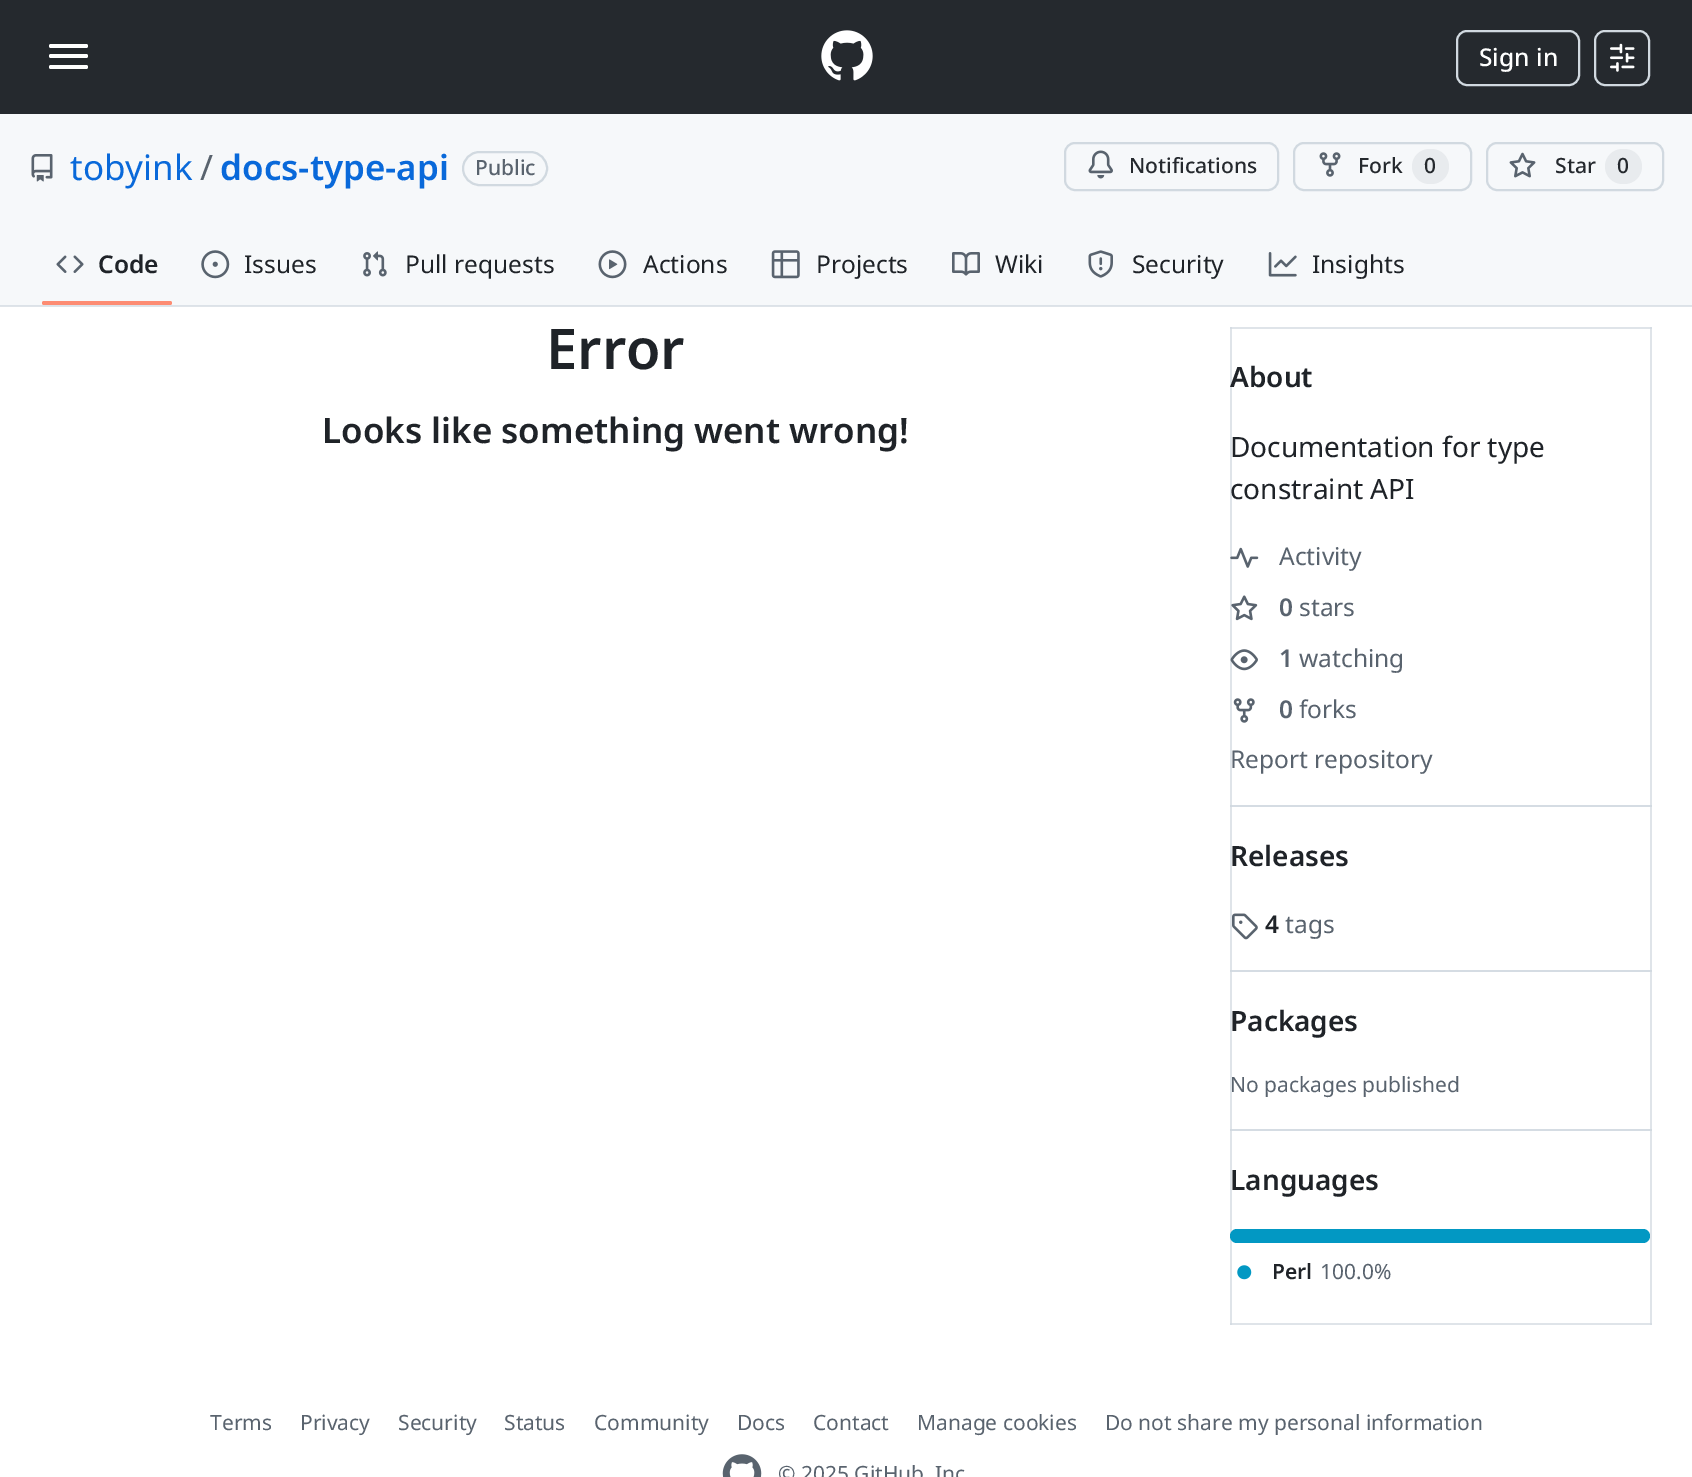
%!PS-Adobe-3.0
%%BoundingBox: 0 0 1692 1477
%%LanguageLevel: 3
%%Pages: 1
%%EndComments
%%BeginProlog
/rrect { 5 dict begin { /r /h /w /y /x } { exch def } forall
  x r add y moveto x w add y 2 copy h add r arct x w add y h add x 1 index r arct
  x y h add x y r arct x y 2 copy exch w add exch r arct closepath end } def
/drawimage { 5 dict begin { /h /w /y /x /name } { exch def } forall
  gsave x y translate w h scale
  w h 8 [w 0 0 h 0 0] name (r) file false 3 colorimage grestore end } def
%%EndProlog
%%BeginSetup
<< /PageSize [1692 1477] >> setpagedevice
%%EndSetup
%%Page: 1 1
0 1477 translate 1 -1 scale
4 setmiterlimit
1 setgray
0 0 1692 1477 rectfill
0.875 0.894 0.914 setrgbcolor
0 306 1692 1 rectfill
1230 327 2 998 rectfill
1650 327 2 804 rectfill
1230 1323 422 2 rectfill
0.835 0.863 0.89 setrgbcolor
1230 1323 2 2 rectfill
0.875 0.894 0.914 setrgbcolor
1650 1129 2 196 rectfill
0.835 0.863 0.89 setrgbcolor
1650 1323 2 2 rectfill
0.145 0.161 0.18 setrgbcolor
0 0 1692 114 rectfill
1 setgray
49 44 39 4 2 rrect fill
49 54 39 4 2 rrect fill
49 65 39 4 2 rrect fill
(images/1.raw) 821 30 52 51 drawimage
0.82 0.851 0.878 setrgbcolor
2 setlinewidth
1457 31 122 54 10 rrect stroke
1595 31 54 54 10 rrect stroke
(images/2.raw) 1610 43 25 29 drawimage
0.965 0.973 0.98 setrgbcolor
0 114 1692 191 rectfill
0.863 0.886 0.91 setrgbcolor
0 305 1692 1 rectfill
(images/3.raw) 31 154 22 28 drawimage
0.82 0.851 0.878 setrgbcolor
463 152 84 33 16.5 rrect stroke
1065 143 213 47 10 rrect stroke
(images/4.raw) 1088 150 25 29 drawimage
1294 143 177 47 10 rrect stroke
(images/5.raw) 1319 152 22 25 drawimage
0.91 0.922 0.933 setrgbcolor
1412 149 37 35 17.5 rrect fill
0.82 0.851 0.878 setrgbcolor
1487 143 176 47 10 rrect stroke
(images/6.raw) 1509 152 27 26 drawimage
0.91 0.922 0.933 setrgbcolor
1605 149 37 35 17.5 rrect fill
(images/7.raw) 56 255 28 18 drawimage
0.992 0.549 0.451 setrgbcolor
42 301 130 4 2 rrect fill
(images/8.raw) 201 250 29 29 drawimage
(images/9.raw) 363 251 24 26 drawimage
(images/10.raw) 598 250 29 29 drawimage
(images/11.raw) 771 250 29 29 drawimage
(images/12.raw) 952 252 28 24 drawimage
(images/13.raw) 1088 250 25 28 drawimage
(images/14.raw) 1268 252 29 25 drawimage
0.875 0.894 0.914 setrgbcolor
1230 327 422 2 rectfill
0.835 0.863 0.89 setrgbcolor
1230 327 2 2 rectfill
1650 327 2 2 rectfill
(images/15.raw) 1230 547 29 21 drawimage
(images/16.raw) 1231 595 27 26 drawimage
(images/17.raw) 1230 649 28 22 drawimage
(images/18.raw) 1233 698 22 25 drawimage
1230 805 422 2 rectfill
0.82 0.851 0.878 setrgbcolor
1230 805 2 2 rectfill
1650 805 2 2 rectfill
(images/19.raw) 1232 913 26 27 drawimage
0.835 0.863 0.89 setrgbcolor
1230 970 422 2 rectfill
0.824 0.855 0.882 setrgbcolor
1230 971 2 1 rectfill
0.82 0.851 0.878 setrgbcolor
1230 970 2 1 rectfill
0.824 0.855 0.882 setrgbcolor
1650 971 2 1 rectfill
0.82 0.851 0.878 setrgbcolor
1650 970 2 1 rectfill
0.835 0.863 0.89 setrgbcolor
1230 1129 422 2 rectfill
0.82 0.851 0.878 setrgbcolor
1230 1129 2 2 rectfill
1650 1129 2 2 rectfill
0.008 0.596 0.765 setrgbcolor
1230 1229 420 14 7 rrect fill
(images/20.raw) 1237 1265 15 15 drawimage
(images/21.raw) 722 1454 40 23 drawimage
/NotoSans-Medium [24.5 0 0 -24.5 0 0] selectfont
1 setgray
1479 66 moveto (Sign in) show
/NotoSans-Regular [35 0 0 -35 0 0] selectfont
0.035 0.412 0.855 setrgbcolor
70 180 moveto (tobyink) show
0.349 0.388 0.431 setrgbcolor
200 180 moveto (/) show
/NotoSans-SemiBold [35 0 0 -35 0 0] selectfont
0.035 0.412 0.855 setrgbcolor
220 180 moveto (docs-type-api) show
/NotoSans-Medium [21 0 0 -21 0 0] selectfont
0.349 0.388 0.431 setrgbcolor
475 175 moveto (Public) show
0.145 0.161 0.18 setrgbcolor
1129 173 moveto (Notifications) show
1358 173 moveto (Fork) show
1424 173 moveto (0) show
1555 173 moveto (Star) show
1617 173 moveto (0) show
/NotoSans-SemiBold [24.5 0 0 -24.5 0 0] selectfont
0.122 0.137 0.157 setrgbcolor
98 273 moveto (Code) show
/NotoSans-Regular [24.5 0 0 -24.5 0 0] selectfont
244 273 moveto (Issues) show
405 273 moveto (Pull requests) show
643 273 moveto (Actions) show
816 273 moveto (Projects) show
995 273 moveto (Wiki) show
1132 273 moveto (Security) show
1312 273 moveto (Insights) show
/NotoSans-SemiBold [56 0 0 -56 0 0] selectfont
546 369 moveto (Error) show
/NotoSans-SemiBold [35 0 0 -35 0 0] selectfont
322 443 moveto (Looks like something went wrong!) show
/NotoSans-SemiBold [28 0 0 -28 0 0] selectfont
1230 387 moveto (About) show
/NotoSans-Regular [28 0 0 -28 0 0] selectfont
1230 457 moveto (Documentation for type) show
1230 499 moveto (constraint API) show
/NotoSans-Regular [24.5 0 0 -24.5 0 0] selectfont
0.349 0.388 0.431 setrgbcolor
1279 565 moveto (Activity) show
/NotoSans-SemiBold [24.5 0 0 -24.5 0 0] selectfont
1279 616 moveto (0) show
/NotoSans-Regular [24.5 0 0 -24.5 0 0] selectfont
1299 616 moveto (stars) show
/NotoSans-SemiBold [24.5 0 0 -24.5 0 0] selectfont
1279 667 moveto (1) show
/NotoSans-Regular [24.5 0 0 -24.5 0 0] selectfont
1299 667 moveto (watching) show
/NotoSans-SemiBold [24.5 0 0 -24.5 0 0] selectfont
1279 718 moveto (0) show
/NotoSans-Regular [24.5 0 0 -24.5 0 0] selectfont
1299 718 moveto (forks) show
1230 768 moveto (Report repository) show
/NotoSans-SemiBold [28 0 0 -28 0 0] selectfont
0.122 0.137 0.157 setrgbcolor
1230 866 moveto (Releases) show
/NotoSans-SemiBold [24.5 0 0 -24.5 0 0] selectfont
1265 933 moveto (4) show
/NotoSans-Regular [24.5 0 0 -24.5 0 0] selectfont
0.349 0.388 0.431 setrgbcolor
1285 933 moveto (tags) show
/NotoSans-SemiBold [28 0 0 -28 0 0] selectfont
0.122 0.137 0.157 setrgbcolor
1230 1031 moveto (Packages) show
/NotoSans-Regular [21 0 0 -21 0 0] selectfont
0.349 0.388 0.431 setrgbcolor
1230 1092 moveto (No packages published) show
/NotoSans-SemiBold [28 0 0 -28 0 0] selectfont
0.122 0.137 0.157 setrgbcolor
1230 1190 moveto (Languages) show
/NotoSans-SemiBold [21 0 0 -21 0 0] selectfont
1272 1279 moveto (Perl) show
/NotoSans-Regular [21 0 0 -21 0 0] selectfont
0.349 0.388 0.431 setrgbcolor
1320 1279 moveto (100.0%) show
210 1430 moveto (Terms) show
300 1430 moveto (Privacy) show
398 1430 moveto (Security) show
504 1430 moveto (Status) show
594 1430 moveto (Community) show
737 1430 moveto (Docs) show
813 1430 moveto (Contact) show
917 1430 moveto (Manage cookies) show
1105 1430 moveto (Do not share my personal information) show
778 1481 moveto (© 2025 GitHub, Inc) show
showpage
%%EOF
